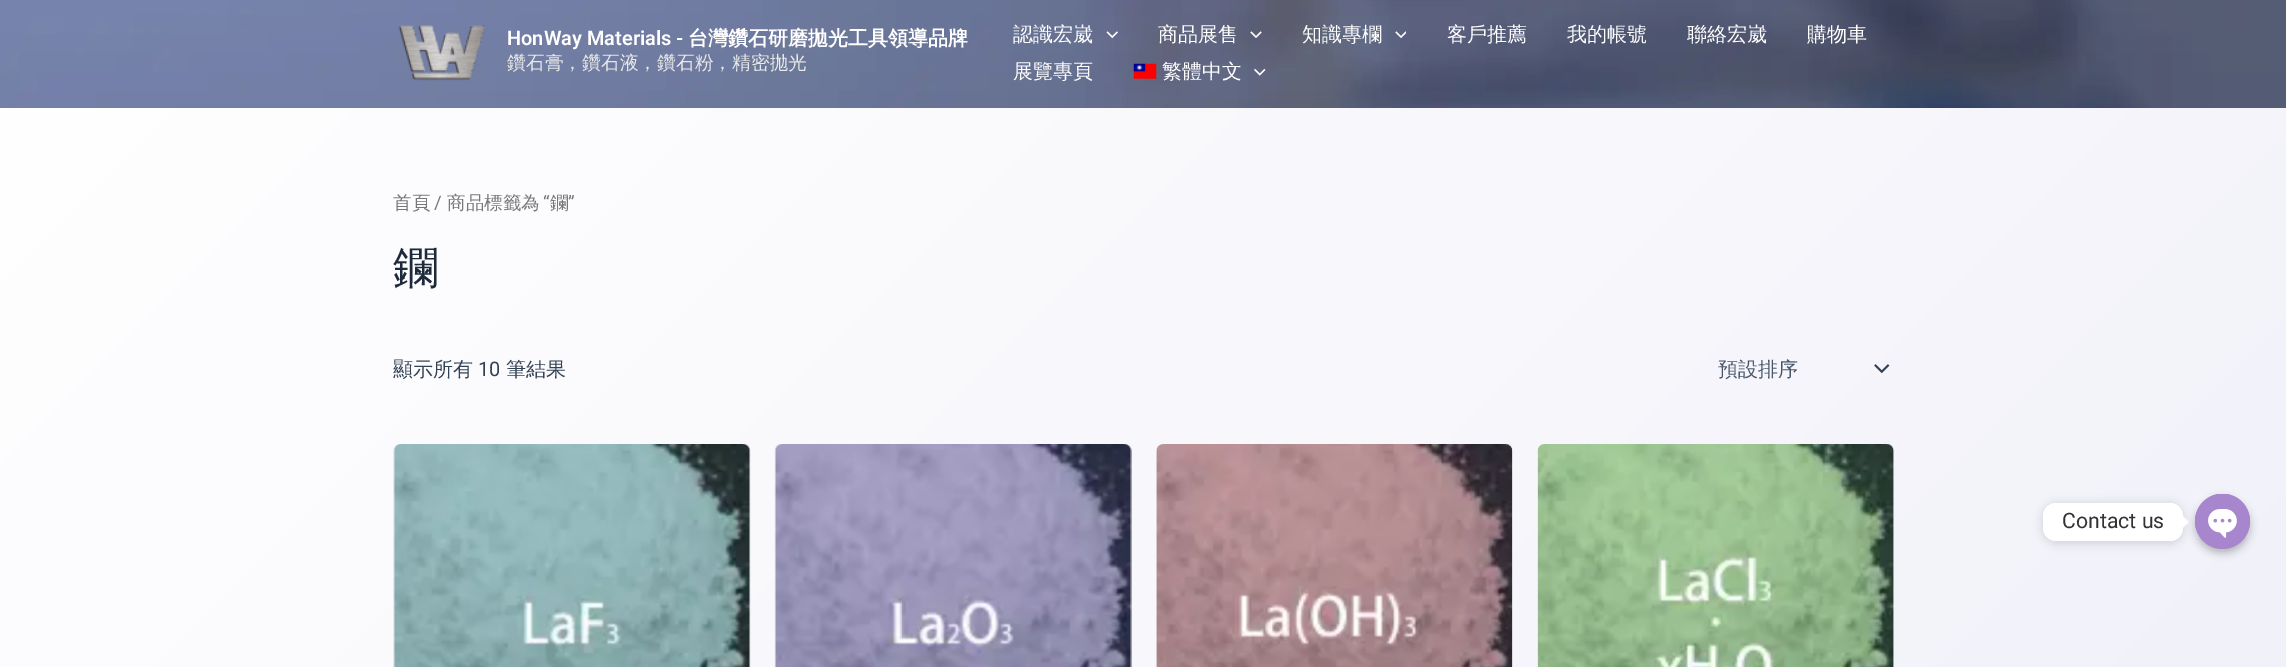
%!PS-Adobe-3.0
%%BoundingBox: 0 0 2286 667
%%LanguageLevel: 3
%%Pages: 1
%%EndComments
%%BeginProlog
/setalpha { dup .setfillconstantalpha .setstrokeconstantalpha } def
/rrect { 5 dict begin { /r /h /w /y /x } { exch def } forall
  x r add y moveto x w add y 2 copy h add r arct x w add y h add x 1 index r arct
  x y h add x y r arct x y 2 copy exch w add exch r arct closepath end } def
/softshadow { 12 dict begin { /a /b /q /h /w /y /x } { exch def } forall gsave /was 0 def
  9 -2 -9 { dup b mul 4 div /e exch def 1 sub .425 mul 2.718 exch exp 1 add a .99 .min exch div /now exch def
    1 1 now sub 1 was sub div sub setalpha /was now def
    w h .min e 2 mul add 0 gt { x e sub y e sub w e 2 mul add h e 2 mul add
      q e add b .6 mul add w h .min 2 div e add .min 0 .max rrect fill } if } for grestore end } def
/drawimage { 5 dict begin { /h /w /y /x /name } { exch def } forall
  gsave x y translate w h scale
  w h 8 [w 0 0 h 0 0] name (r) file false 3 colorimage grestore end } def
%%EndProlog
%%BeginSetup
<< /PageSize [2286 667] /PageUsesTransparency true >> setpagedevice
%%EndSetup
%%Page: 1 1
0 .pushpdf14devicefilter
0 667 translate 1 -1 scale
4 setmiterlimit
1 setgray
0 0 2286 667 rectfill
gsave newpath 0 108 moveto 2286 108 lineto 2286 667 lineto 0 667 lineto closepath clip newpath
<< /ShadingType 2 /ColorSpace /DeviceRGB /Coords [-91 91 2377 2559] /Extend [true true] /Function << /FunctionType 3 /Domain [0 1] /Functions [<< /FunctionType 2 /Domain [0 1] /C0 [1 1 1] /C1 [1 1 1] /N 1 >> << /FunctionType 2 /Domain [0 1] /C0 [1 1 1] /C1 [0.91 0.91 0.965] /N 1 >>] /Bounds [0.02] /Encode [0 1 0 1] >> >> shfill grestore
(images/1.raw) 0 0 2286 108 drawimage
(images/2.raw) 398 25 87 56 drawimage
(images/3.raw) 1106 31 12 8 drawimage
(images/4.raw) 1250 31 12 7 drawimage
(images/5.raw) 1395 31 11 7 drawimage
(images/6.raw) 1133 63 24 16 drawimage
(images/7.raw) 1254 68 12 8 drawimage
(images/8.raw) 1874 364 16 10 drawimage
(images/9.raw) 393 444 358 223 drawimage
(images/10.raw) 774 444 358 223 drawimage
(images/11.raw) 1156 444 357 223 drawimage
(images/12.raw) 1537 444 357 223 drawimage
0 setgray
2043 504 140 39 13 5 0.15 softshadow
1 setgray
2043 503 140 38 13 rrect fill
newpath 2182.5 528 moveto 2182.5 515.5 lineto 2189 522 lineto closepath fill
0 setgray
2195 498 55 55 27.5 4 0.25 softshadow
0.659 0.525 0.804 setrgbcolor
newpath 2222.5 521.5 27.5 0 360 arc closepath fill
(images/13.raw) 2195 494 55 44 drawimage
/Roboto-SemiBold [20 0 0 -20 0 0] selectfont
1 0.996 0.996 setrgbcolor
507 45 moveto (HonWay Materials -) show
/WenQuanYiZenHei-Bold [20 0 0 -20 0 0] selectfont
688 45 moveto (台灣鑽石研磨拋光工具領導品牌) show
/WenQuanYiZenHei-Medium [18.75 0 0 -18.75 0 0] selectfont
0.914 setgray
507 69 moveto (鑽石膏，鑽石液，鑽石粉，精密拋光) show
/WenQuanYiZenHei-Medium [20 0 0 -20 0 0] selectfont
1 0.996 0.996 setrgbcolor
1013 41 moveto (認識宏崴) show
1158 41 moveto (商品展售) show
1302 41 moveto (知識專欄) show
1447 41 moveto (客戶推薦) show
1567 41 moveto (我的帳號) show
1687 41 moveto (聯絡宏崴) show
1807 41 moveto (購物車) show
1013 78 moveto (展覽專頁) show
1162 78 moveto (繁體中文) show
/WenQuanYiZenHei-Medium [18.5 0 0 -18.5 0 0] selectfont
0.467 setgray
393 209 moveto (首頁) show
/Roboto-Regular [18.5 0 0 -18.5 0 0] selectfont
434 209 moveto (/) show
/WenQuanYiZenHei-Medium [18.5 0 0 -18.5 0 0] selectfont
447 209 moveto (商品標籤為) show
/Roboto-Regular [18.5 0 0 -18.5 0 0] selectfont
543 209 moveto (“) show
/WenQuanYiZenHei-Medium [18.5 0 0 -18.5 0 0] selectfont
550 209 moveto (鑭) show
/Roboto-Regular [18.5 0 0 -18.5 0 0] selectfont
568 209 moveto (”) show
/WenQuanYiZenHei-Medium [45 0 0 -45 0 0] selectfont
0.118 0.161 0.231 setrgbcolor
393 283 moveto (鑭) show
/WenQuanYiZenHei-Medium [20 0 0 -20 0 0] selectfont
0.2 0.255 0.333 setrgbcolor
393 376 moveto (顯示所有) show
/Roboto-Regular [20 0 0 -20 0 0] selectfont
478 376 moveto (10) show
/WenQuanYiZenHei-Medium [20 0 0 -20 0 0] selectfont
506 376 moveto (筆結果) show
0.278 0.333 0.412 setrgbcolor
1718 376 moveto (預設排序) show
/Roboto-Regular [21.25 0 0 -21.25 0 0] selectfont
0.2 setgray
2062 528 moveto (Contact us) show
.poppdf14devicefilter showpage
%%EOF
